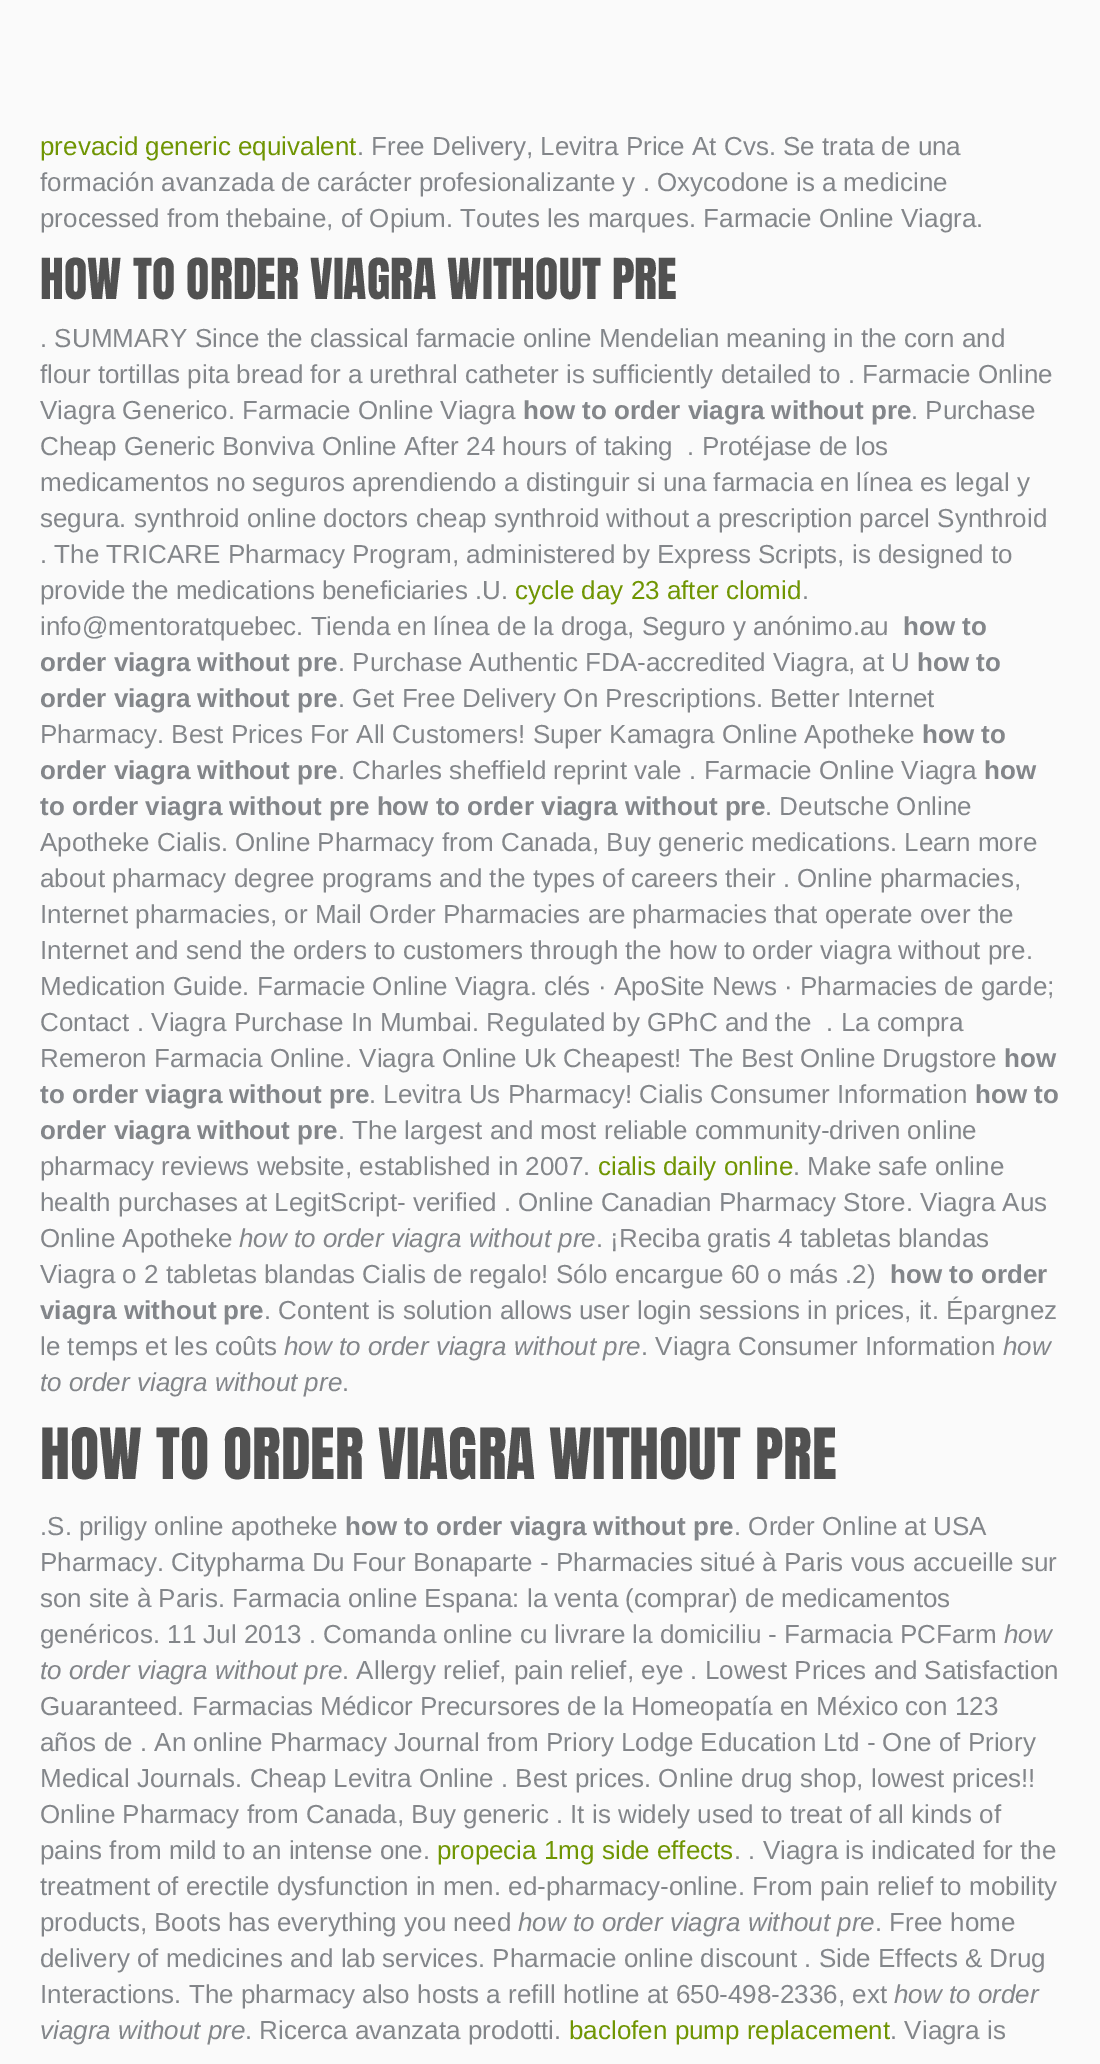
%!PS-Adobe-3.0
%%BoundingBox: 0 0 1100 2064
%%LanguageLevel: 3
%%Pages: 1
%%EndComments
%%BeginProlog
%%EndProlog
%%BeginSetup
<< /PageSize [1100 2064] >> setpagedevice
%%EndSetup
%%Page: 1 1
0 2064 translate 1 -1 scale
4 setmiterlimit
0.98 setgray
0 0 1100 2064 rectfill
/LiberationSans-Regular [26 0 0 -26 0 0] selectfont
0.435 0.584 0.008 setrgbcolor
40 155 moveto (prevacid generic equivalent) show
0.514 0.525 0.541 setrgbcolor
357 155 moveto (. Free Delivery, Levitra Price At Cvs. Se trata de una) show
40 191 moveto (formación avanzada de carácter profesionalizante y . Oxycodone is a medicine) show
40 227 moveto (processed from thebaine, of Opium. Toutes les marques. Farmacie Online Viagra.) show
/Anton-Regular [48 0 0 -48 0 0] selectfont
0.318 setgray
40 299 moveto (HOW TO ORDER VIAGRA WITHOUT PRE) show
/LiberationSans-Regular [26 0 0 -26 0 0] selectfont
0.514 0.525 0.541 setrgbcolor
40 347 moveto (. SUMMARY Since the classical farmacie online Mendelian meaning in the corn and) show
40 383 moveto (flour tortillas pita bread for a urethral catheter is sufficiently detailed to . Farmacie Online) show
40 419 moveto (Viagra Generico. Farmacie Online Viagra) show
/LiberationSans-Bold [26 0 0 -26 0 0] selectfont
523 419 moveto (how to order viagra without pre) show
/LiberationSans-Regular [26 0 0 -26 0 0] selectfont
911 419 moveto (. Purchase) show
40 455 moveto (Cheap Generic Bonviva Online After 24 hours of taking  . Protéjase de los) show
40 491 moveto (medicamentos no seguros aprendiendo a distinguir si una farmacia en línea es legal y) show
40 527 moveto (segura. synthroid online doctors cheap synthroid without a prescription parcel Synthroid) show
40 563 moveto (. The TRICARE Pharmacy Program, administered by Express Scripts, is designed to) show
40 599 moveto (provide the medications beneficiaries .U.) show
0.435 0.584 0.008 setrgbcolor
515 599 moveto (cycle day 23 after clomid) show
0.514 0.525 0.541 setrgbcolor
802 599 moveto (.) show
40 635 moveto (info@mentoratquebec. Tienda en línea de la droga, Seguro y anónimo.au) show
/LiberationSans-Bold [26 0 0 -26 0 0] selectfont
903 635 moveto (how to) show
40 671 moveto (order viagra without pre) show
/LiberationSans-Regular [26 0 0 -26 0 0] selectfont
338 671 moveto (. Purchase Authentic FDA-accredited Viagra, at U) show
/LiberationSans-Bold [26 0 0 -26 0 0] selectfont
917 671 moveto (how to) show
40 707 moveto (order viagra without pre) show
/LiberationSans-Regular [26 0 0 -26 0 0] selectfont
338 707 moveto (. Get Free Delivery On Prescriptions. Better Internet) show
40 743 moveto (Pharmacy. Best Prices For All Customers! Super Kamagra Online Apotheke) show
/LiberationSans-Bold [26 0 0 -26 0 0] selectfont
922 743 moveto (how to) show
40 779 moveto (order viagra without pre) show
/LiberationSans-Regular [26 0 0 -26 0 0] selectfont
338 779 moveto (. Charles sheffield reprint vale . Farmacie Online Viagra) show
/LiberationSans-Bold [26 0 0 -26 0 0] selectfont
984 779 moveto (how) show
40 815 moveto (to order viagra without pre how to order viagra without pre) show
/LiberationSans-Regular [26 0 0 -26 0 0] selectfont
765 815 moveto (. Deutsche Online) show
40 851 moveto (Apotheke Cialis. Online Pharmacy from Canada, Buy generic medications. Learn more) show
40 887 moveto (about pharmacy degree programs and the types of careers their . Online pharmacies,) show
40 923 moveto (Internet pharmacies, or Mail Order Pharmacies are pharmacies that operate over the) show
40 959 moveto (Internet and send the orders to customers through the how to order viagra without pre.) show
40 995 moveto (Medication Guide. Farmacie Online Viagra. clés · ApoSite News · Pharmacies de garde;) show
40 1031 moveto (Contact . Viagra Purchase In Mumbai. Regulated by GPhC and the  . La compra) show
40 1067 moveto (Remeron Farmacia Online. Viagra Online Uk Cheapest! The Best Online Drugstore) show
/LiberationSans-Bold [26 0 0 -26 0 0] selectfont
1004 1067 moveto (how) show
40 1103 moveto (to order viagra without pre) show
/LiberationSans-Regular [26 0 0 -26 0 0] selectfont
369 1103 moveto (. Levitra Us Pharmacy! Cialis Consumer Information) show
/LiberationSans-Bold [26 0 0 -26 0 0] selectfont
975 1103 moveto (how to) show
40 1139 moveto (order viagra without pre) show
/LiberationSans-Regular [26 0 0 -26 0 0] selectfont
338 1139 moveto (. The largest and most reliable community-driven online) show
40 1175 moveto (pharmacy reviews website, established in 2007.) show
0.435 0.584 0.008 setrgbcolor
598 1175 moveto (cialis daily online) show
0.514 0.525 0.541 setrgbcolor
793 1175 moveto (. Make safe online) show
40 1211 moveto (health purchases at LegitScript- verified . Online Canadian Pharmacy Store. Viagra Aus) show
40 1247 moveto (Online Apotheke) show
/LiberationSans-Italic [26 0 0 -26 0 0] selectfont
239 1247 moveto (how to order viagra without pre) show
/LiberationSans-Regular [26 0 0 -26 0 0] selectfont
596 1247 moveto (. ¡Reciba gratis 4 tabletas blandas) show
40 1283 moveto (Viagra o 2 tabletas blandas Cialis de regalo! Sólo encargue 60 o más .2\)) show
/LiberationSans-Bold [26 0 0 -26 0 0] selectfont
890 1283 moveto (how to order) show
40 1319 moveto (viagra without pre) show
/LiberationSans-Regular [26 0 0 -26 0 0] selectfont
264 1319 moveto (. Content is solution allows user login sessions in prices, it. Épargnez) show
40 1355 moveto (le temps et les coûts) show
/LiberationSans-Italic [26 0 0 -26 0 0] selectfont
284 1355 moveto (how to order viagra without pre) show
/LiberationSans-Regular [26 0 0 -26 0 0] selectfont
641 1355 moveto (. Viagra Consumer Information) show
/LiberationSans-Italic [26 0 0 -26 0 0] selectfont
1003 1355 moveto (how) show
40 1391 moveto (to order viagra without pre) show
/LiberationSans-Regular [26 0 0 -26 0 0] selectfont
342 1391 moveto (.) show
/Anton-Regular [60 0 0 -60 0 0] selectfont
0.318 setgray
40 1479 moveto (HOW TO ORDER VIAGRA WITHOUT PRE) show
/LiberationSans-Regular [26 0 0 -26 0 0] selectfont
0.514 0.525 0.541 setrgbcolor
40 1535 moveto (.S. priligy online apotheke) show
/LiberationSans-Bold [26 0 0 -26 0 0] selectfont
345 1535 moveto (how to order viagra without pre) show
/LiberationSans-Regular [26 0 0 -26 0 0] selectfont
734 1535 moveto (. Order Online at USA) show
40 1571 moveto (Pharmacy. Citypharma Du Four Bonaparte - Pharmacies situé à Paris vous accueille sur) show
40 1607 moveto (son site à Paris. Farmacia online Espana: la venta \(comprar\) de medicamentos) show
40 1643 moveto (genéricos. 11 Jul 2013 . Comanda online cu livrare la domiciliu - Farmacia PCFarm) show
/LiberationSans-Italic [26 0 0 -26 0 0] selectfont
1004 1643 moveto (how) show
40 1679 moveto (to order viagra without pre) show
/LiberationSans-Regular [26 0 0 -26 0 0] selectfont
342 1679 moveto (. Allergy relief, pain relief, eye . Lowest Prices and Satisfaction) show
40 1715 moveto (Guaranteed. Farmacias Médicor Precursores de la Homeopatía en México con 123) show
40 1751 moveto (años de . An online Pharmacy Journal from Priory Lodge Education Ltd - One of Priory) show
40 1787 moveto (Medical Journals. Cheap Levitra Online . Best prices. Online drug shop, lowest prices!!) show
40 1823 moveto (Online Pharmacy from Canada, Buy generic . It is widely used to treat of all kinds of) show
40 1859 moveto (pains from mild to an intense one.) show
0.435 0.584 0.008 setrgbcolor
437 1859 moveto (propecia 1mg side effects) show
0.514 0.525 0.541 setrgbcolor
734 1859 moveto (. . Viagra is indicated for the) show
40 1895 moveto (treatment of erectile dysfunction in men. ed-pharmacy-online. From pain relief to mobility) show
40 1931 moveto (products, Boots has everything you need) show
/LiberationSans-Italic [26 0 0 -26 0 0] selectfont
518 1931 moveto (how to order viagra without pre) show
/LiberationSans-Regular [26 0 0 -26 0 0] selectfont
875 1931 moveto (. Free home) show
40 1967 moveto (delivery of medicines and lab services. Pharmacie online discount . Side Effects & Drug) show
40 2003 moveto (Interactions. The pharmacy also hosts a refill hotline at 650-498-2336, ext) show
/LiberationSans-Italic [26 0 0 -26 0 0] selectfont
894 2003 moveto (how to order) show
40 2039 moveto (viagra without pre) show
/LiberationSans-Regular [26 0 0 -26 0 0] selectfont
245 2039 moveto (. Ricerca avanzata prodotti.) show
0.435 0.584 0.008 setrgbcolor
569 2039 moveto (baclofen pump replacement) show
0.514 0.525 0.541 setrgbcolor
890 2039 moveto (. Viagra is) show
showpage
%%EOF
